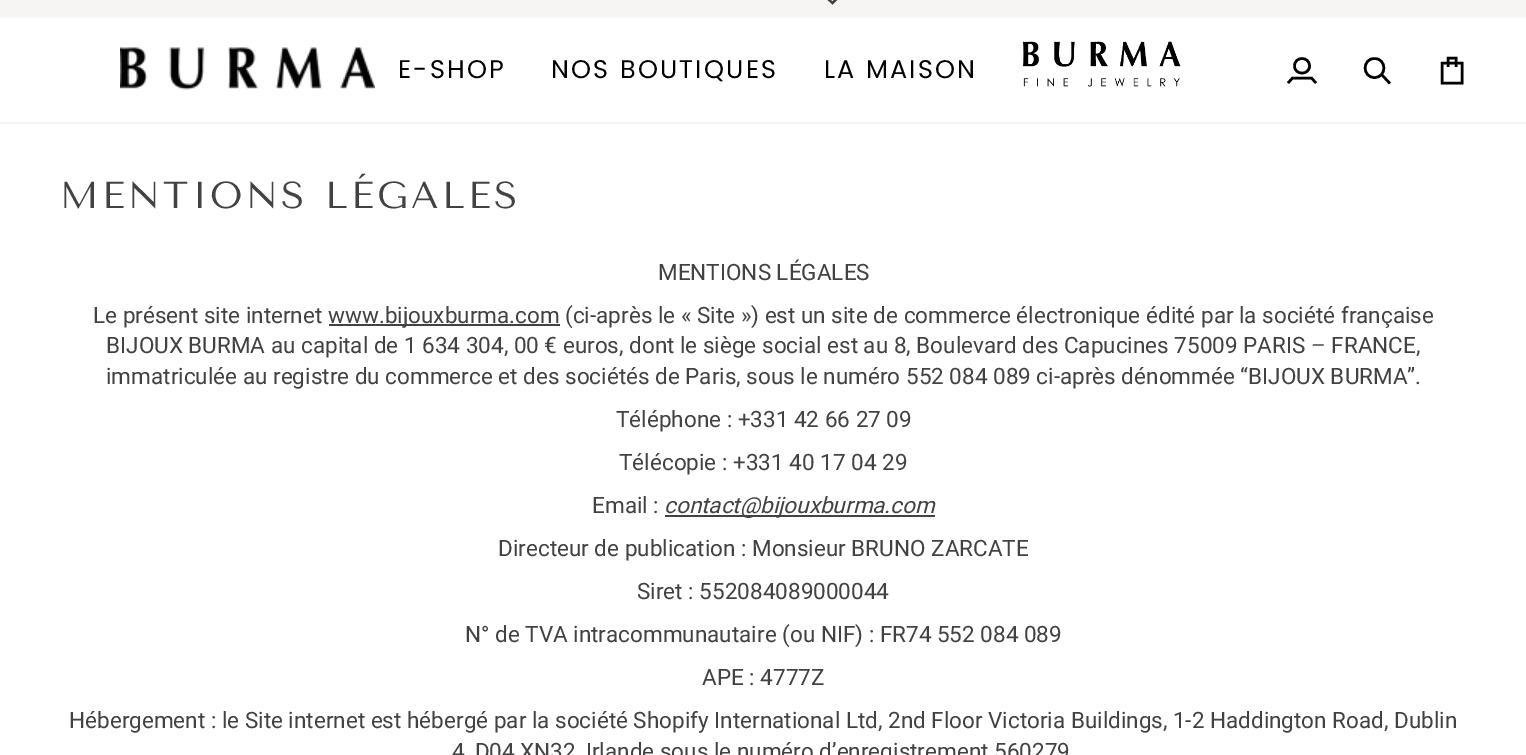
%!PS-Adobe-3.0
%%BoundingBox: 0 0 1526 755
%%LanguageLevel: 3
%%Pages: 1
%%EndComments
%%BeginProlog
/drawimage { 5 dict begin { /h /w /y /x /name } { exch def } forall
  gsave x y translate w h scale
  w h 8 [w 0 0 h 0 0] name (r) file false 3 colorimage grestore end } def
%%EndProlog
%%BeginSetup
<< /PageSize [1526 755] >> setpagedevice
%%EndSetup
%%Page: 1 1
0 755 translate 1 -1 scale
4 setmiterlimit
1 setgray
0 0 1526 755 rectfill
0.969 0.961 0.957 setrgbcolor
0 122 1526 2 rectfill
0 0 1526 18 rectfill
0.259 setgray
2.2 setlinewidth
2 setlinecap
newpath 825.5 -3.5 moveto 832.5 3 lineto 839 -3.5 lineto stroke
(images/1.raw) 120 47 255 43 drawimage
(images/2.raw) 1023 41 158 46 drawimage
0 setgray
2.5 setlinewidth
0 setlinecap
newpath 1288 83 moveto 1292.5 78 lineto 1311.5 78 lineto 1316 83 lineto 1309.5 66 moveto 1309.5 75.5 1294.5 75.5 1294.5 66 curveto 1294.5 56 1309.5 56 1309.5 66 curveto closepath stroke
2 setlinecap
newpath 1374.5 77.5 moveto 1387 77.5 1387 58.5 1374.5 58.5 curveto 1362 58.5 1362 77.5 1374.5 77.5 curveto closepath 1389 82.5 moveto 1382 75 lineto stroke
0 setlinecap
newpath 1442 63 moveto 1462 63 lineto 1462 83 lineto 1442 83 lineto closepath 1448 67 moveto 1448 58 lineto 1456 58 lineto 1456 67 lineto stroke
0.259 setgray
329 324 231 2 rectfill
665 515 270 2 rectfill
/Poppins-Regular [25.5 0 0 -25.5 0 0] selectfont
0 setgray
398 78 moveto 2.25 0 (E-SHOP) ashow
551 78 moveto 2.25 0 (NOS BOUTIQUES) ashow
824 78 moveto 2.25 0 (LA MAISON) ashow
/TenorSans-Regular [37.5 0 0 -37.5 0 0] selectfont
0.259 setgray
60 208 moveto 3.4 0 (MENTIONS LÉGALES) ashow
/Roboto-Regular [22.5 0 0 -22.5 0 0] selectfont
658 280 moveto (MENTIONS LÉGALES) show
93 323 moveto (Le présent site internet) show
328 323 moveto (www.bijouxburma.com \(ci-après le « Site »\) est un site de commerce électronique édité par la société française) show
106 353 moveto (BIJOUX BURMA au capital de 1 634 304, 00 € euros, dont le siège social est au 8, Boulevard des Capucines 75009 PARIS – FRANCE,) show
106 384 moveto (immatriculée au registre du commerce et des sociétés de Paris, sous le numéro 552 084 089 ci-après dénommée “BIJOUX BURMA”.) show
616 427 moveto (Téléphone : +331 42 66 27 09) show
619 470 moveto (Télécopie : +331 40 17 04 29) show
592 513 moveto (Email :) show
/Roboto-Italic [22.5 0 0 -22.5 0 0] selectfont
664 513 moveto (contact@bijouxburma.com) show
/Roboto-Regular [22.5 0 0 -22.5 0 0] selectfont
498 556 moveto (Directeur de publication : Monsieur BRUNO ZARCATE) show
637 599 moveto (Siret : 552084089000044) show
465 642 moveto (N° de TVA intracommunautaire \(ou NIF\) : FR74 552 084 089) show
702 685 moveto (APE : 4777Z) show
69 728 moveto (Hébergement : le Site internet est hébergé par la société Shopify International Ltd, 2nd Floor Victoria Buildings, 1-2 Haddington Road, Dublin) show
452 759 moveto (4, D04 XN32, Irlande sous le numéro d’enregistrement 560279) show
showpage
%%EOF
